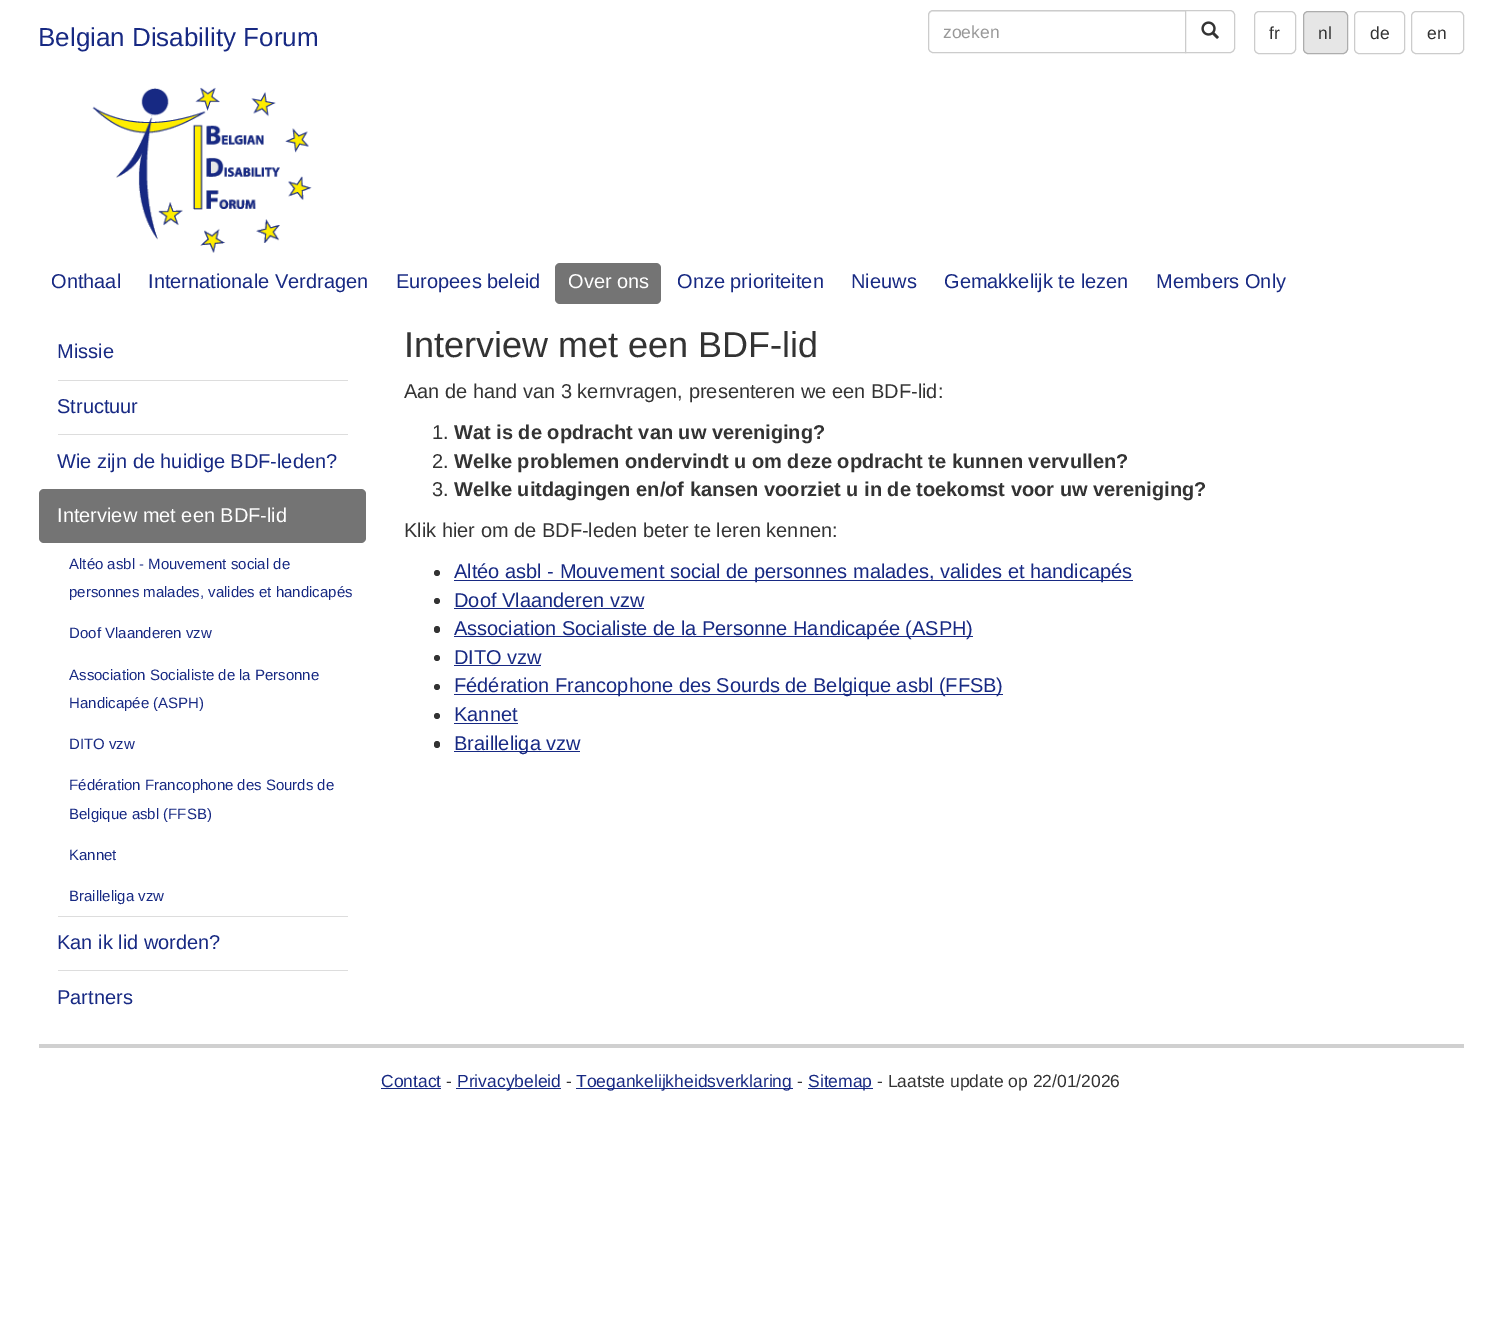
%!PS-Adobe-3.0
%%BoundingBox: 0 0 1501 1322
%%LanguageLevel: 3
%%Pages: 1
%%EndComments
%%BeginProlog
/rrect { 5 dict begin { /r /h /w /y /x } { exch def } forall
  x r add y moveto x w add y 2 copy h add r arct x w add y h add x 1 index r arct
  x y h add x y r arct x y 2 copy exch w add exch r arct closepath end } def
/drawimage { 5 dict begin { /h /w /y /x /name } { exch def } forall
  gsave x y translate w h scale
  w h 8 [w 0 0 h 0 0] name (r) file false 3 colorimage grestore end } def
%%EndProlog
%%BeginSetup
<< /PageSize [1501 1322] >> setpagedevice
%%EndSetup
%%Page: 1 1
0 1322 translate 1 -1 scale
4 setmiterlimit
1 setgray
0 0 1501 1322 rectfill
0.925 setgray
newpath 932 12 moveto 1185 12 lineto 1185 11 lineto 933 11 lineto 931 11 929 13 929 15 curveto 929 16 lineto 929 14 930 12 932 12 curveto closepath fill
0.8 setgray
newpath 933 10.5 moveto 1185.5 10.5 lineto 1185.5 52.5 lineto 933 52.5 lineto 930.5 52.5 928.5 50.5 928.5 48 curveto 928.5 15 lineto 928.5 12.5 930.5 10.5 933 10.5 curveto closepath stroke
1 setgray
newpath 1185.5 10.5 moveto 1230 10.5 lineto 1232.5 10.5 1234.5 12.5 1234.5 15 curveto 1234.5 48 lineto 1234.5 50.5 1232.5 52.5 1230 52.5 curveto 1185.5 52.5 lineto closepath gsave fill grestore
0.8 setgray
stroke
(images/1.raw) 1201 21 18 18 drawimage
1254.5 11.5 41 42 4.5 rrect stroke
0.902 setgray
1303.5 11.5 44 42 4.5 rrect gsave fill grestore
0.678 setgray
stroke
0.8 setgray
1354.5 11.5 50 42 4.5 rrect stroke
1411.5 11.5 52 42 4.5 rrect stroke
(images/2.raw) 92 87 220 166 drawimage
0.455 setgray
555 263 106 41 5 rrect fill
0.867 setgray
58 380 290 1 rectfill
58 434 290 1 rectfill
0.455 setgray
39 489 327 54 5 rrect fill
0.867 setgray
58 916 290 1 rectfill
58 970 290 1 rectfill
0.2 setgray
newpath 437 573 3 0 360 arc closepath fill
0.09 0.161 0.514 setrgbcolor
454 580 679 1 rectfill
0.2 setgray
newpath 437 601 3 0 360 arc closepath fill
0.09 0.161 0.514 setrgbcolor
454 608 190 1 rectfill
0.2 setgray
434 626 6 7 3 rrect fill
0.09 0.161 0.514 setrgbcolor
454 636 519 1 rectfill
0.2 setgray
newpath 437 658 3 0 360 arc closepath fill
0.09 0.161 0.514 setrgbcolor
454 665 87 1 rectfill
0.2 setgray
newpath 437 687 3 0 360 arc closepath fill
0.09 0.161 0.514 setrgbcolor
454 694 549 1 rectfill
0.2 setgray
newpath 437 716 3 0 360 arc closepath fill
0.09 0.161 0.514 setrgbcolor
454 723 64 1 rectfill
0.2 setgray
434 741 6 7 3 rrect fill
0.09 0.161 0.514 setrgbcolor
454 751 126 1 rectfill
0.816 setgray
39 1044 1425 4 rectfill
0.09 0.161 0.514 setrgbcolor
381 1088 60 1 rectfill
456 1088 105 1 rectfill
576 1088 217 1 rectfill
808 1088 65 1 rectfill
/LiberationSans-Regular [26 0 0 -26 0 0] selectfont
38 46 moveto (Belgian Disability Forum) show
/LiberationSans-Regular [17.5 0 0 -17.5 0 0] selectfont
0.6 setgray
943 38 moveto (zoeken) show
0.2 setgray
1269 39 moveto (fr) show
1318 39 moveto (nl) show
1370 39 moveto (de) show
1427 39 moveto (en) show
/LiberationSans-Regular [20 0 0 -20 0 0] selectfont
0.09 0.161 0.514 setrgbcolor
51 288 moveto (Onthaal) show
148 288 moveto (Internationale Verdragen) show
396 288 moveto (Europees beleid) show
1 setgray
568 288 moveto (Over ons) show
0.09 0.161 0.514 setrgbcolor
677 288 moveto (Onze prioriteiten) show
851 288 moveto (Nieuws) show
944 288 moveto (Gemakkelijk te lezen) show
1156 288 moveto (Members Only) show
57 358 moveto (Missie) show
57 413 moveto (Structuur) show
57 468 moveto (Wie zijn de huidige BDF-leden?) show
1 setgray
57 522 moveto (Interview met een BDF-lid) show
/LiberationSans-Regular [15 0 0 -15 0 0] selectfont
0.09 0.161 0.514 setrgbcolor
69 569 moveto (Altéo asbl - Mouvement social de) show
69 597 moveto (personnes malades, valides et handicapés) show
69 638 moveto (Doof Vlaanderen vzw) show
69 680 moveto (Association Socialiste de la Personne) show
69 708 moveto (Handicapée \(ASPH\)) show
69 749 moveto (DITO vzw) show
69 790 moveto (Fédération Francophone des Sourds de) show
69 819 moveto (Belgique asbl \(FFSB\)) show
69 860 moveto (Kannet) show
69 901 moveto (Brailleliga vzw) show
/LiberationSans-Regular [20 0 0 -20 0 0] selectfont
57 949 moveto (Kan ik lid worden?) show
57 1004 moveto (Partners) show
/LiberationSans-Regular [36 0 0 -36 0 0] selectfont
0.2 setgray
404 357 moveto (Interview met een BDF-lid) show
/LiberationSans-Regular [20 0 0 -20 0 0] selectfont
404 398 moveto (Aan de hand van 3 kernvragen, presenteren we een BDF-lid:) show
432 439 moveto (1.) show
/LiberationSans-Bold [20 0 0 -20 0 0] selectfont
454 439 moveto (Wat is de opdracht van uw vereniging?) show
/LiberationSans-Regular [20 0 0 -20 0 0] selectfont
432 468 moveto (2.) show
/LiberationSans-Bold [20 0 0 -20 0 0] selectfont
454 468 moveto (Welke problemen ondervindt u om deze opdracht te kunnen vervullen?) show
/LiberationSans-Regular [20 0 0 -20 0 0] selectfont
432 496 moveto (3.) show
/LiberationSans-Bold [20 0 0 -20 0 0] selectfont
454 496 moveto (Welke uitdagingen en/of kansen voorziet u in de toekomst voor uw vereniging?) show
/LiberationSans-Regular [20 0 0 -20 0 0] selectfont
404 537 moveto (Klik hier om de BDF-leden beter te leren kennen:) show
0.09 0.161 0.514 setrgbcolor
454 578 moveto (Altéo asbl - Mouvement social de personnes malades, valides et handicapés) show
454 607 moveto (Doof Vlaanderen vzw) show
454 635 moveto (Association Socialiste de la Personne Handicapée \(ASPH\)) show
454 664 moveto (DITO vzw) show
454 692 moveto (Fédération Francophone des Sourds de Belgique asbl \(FFSB\)) show
454 721 moveto (Kannet) show
454 750 moveto (Brailleliga vzw) show
/LiberationSans-Regular [17.5 0 0 -17.5 0 0] selectfont
381 1087 moveto (Contact) show
0.2 setgray
446 1087 moveto (-) show
0.09 0.161 0.514 setrgbcolor
457 1087 moveto (Privacybeleid) show
0.2 setgray
566 1087 moveto (-) show
0.09 0.161 0.514 setrgbcolor
576 1087 moveto (Toegankelijkheidsverklaring) show
0.2 setgray
797 1087 moveto (-) show
0.09 0.161 0.514 setrgbcolor
808 1087 moveto (Sitemap) show
0.2 setgray
877 1087 moveto (- Laatste update op 22/01/2026) show
showpage
%%EOF
